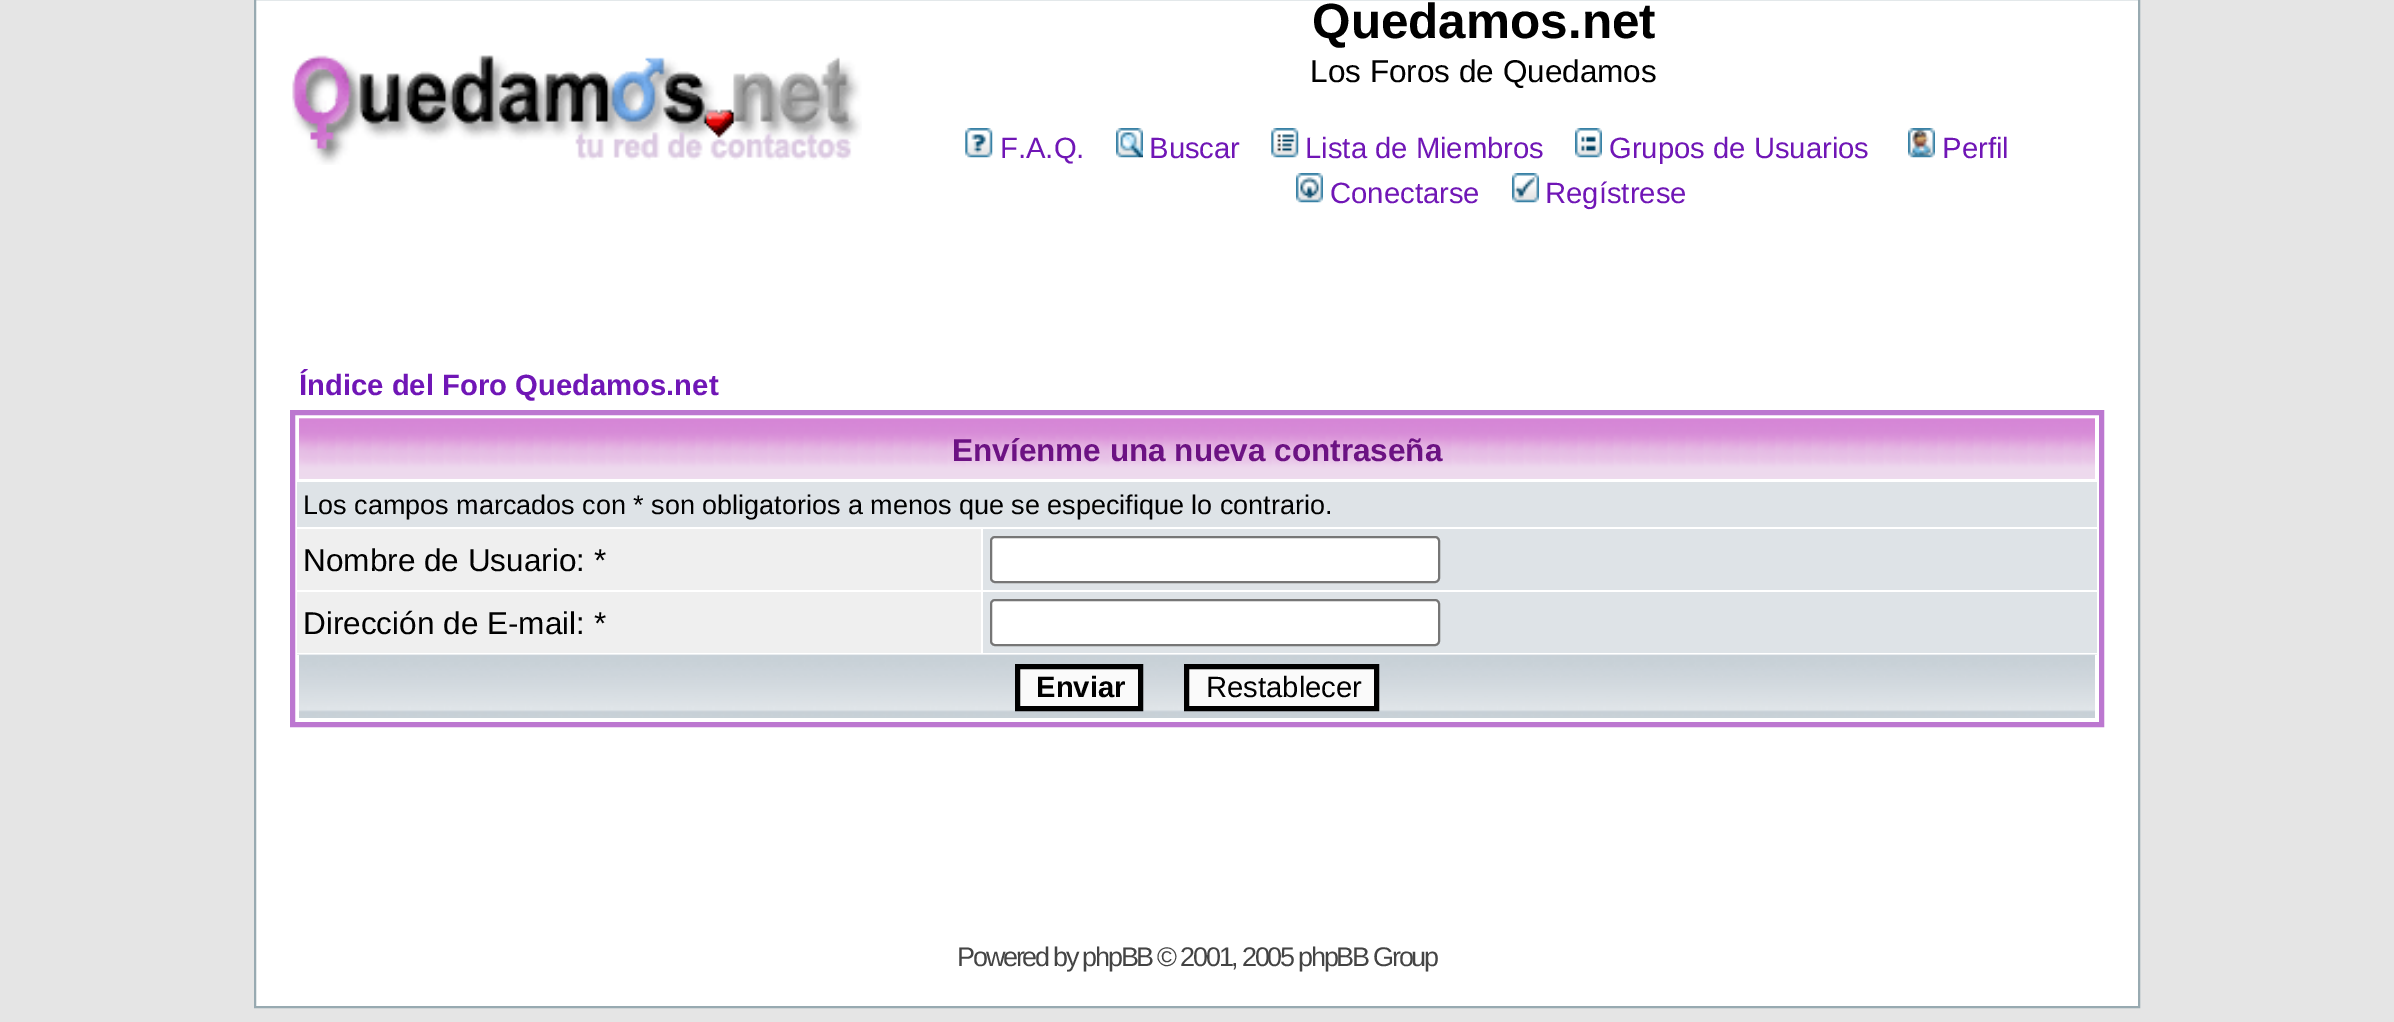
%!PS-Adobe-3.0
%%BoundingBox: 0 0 2394 1022
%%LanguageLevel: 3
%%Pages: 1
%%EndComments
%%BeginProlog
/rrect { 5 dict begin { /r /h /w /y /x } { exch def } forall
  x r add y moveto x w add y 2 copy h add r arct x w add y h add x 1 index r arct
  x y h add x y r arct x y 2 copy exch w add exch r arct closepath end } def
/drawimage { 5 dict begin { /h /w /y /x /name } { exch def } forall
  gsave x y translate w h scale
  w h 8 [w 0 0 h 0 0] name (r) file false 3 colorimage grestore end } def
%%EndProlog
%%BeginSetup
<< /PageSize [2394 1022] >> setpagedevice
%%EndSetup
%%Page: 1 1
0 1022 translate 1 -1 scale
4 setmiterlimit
0.898 setgray
0 0 2394 1022 rectfill
1 setgray
newpath 255 -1 moveto 2139 -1 lineto 2139 1007 lineto 255 1007 lineto closepath gsave fill grestore
0.596 0.667 0.694 setrgbcolor
2 setlinewidth
stroke
(images/1.raw) 292 55 570 110 drawimage
(images/2.raw) 965 128 28 30 drawimage
(images/3.raw) 1116 128 27 30 drawimage
(images/4.raw) 1271 128 28 30 drawimage
(images/5.raw) 1575 128 27 30 drawimage
(images/6.raw) 1908 128 27 30 drawimage
(images/7.raw) 1296 173 27 30 drawimage
(images/8.raw) 1512 173 27 30 drawimage
0.737 0.467 0.816 setrgbcolor
5 setlinewidth
292.5 412.5 1809 312 rectstroke
(images/9.raw) 299 418 1796 61 drawimage
0.871 0.89 0.906 setrgbcolor
297 482 1800 45 rectfill
0.937 setgray
297 529 684 61 rectfill
0.871 0.89 0.906 setrgbcolor
983 529 1114 61 rectfill
1 setgray
991 537 448 45 4 rrect gsave fill grestore
0.463 setgray
2 setlinewidth
stroke
0.937 setgray
297 592 684 61 rectfill
0.871 0.89 0.906 setrgbcolor
983 592 1114 61 rectfill
1 setgray
991 600 448 45 4 rrect gsave fill grestore
0.463 setgray
stroke
(images/10.raw) 297 654 1800 64 drawimage
1 setgray
2095 655 2 65 rectfill
297 655 2 65 rectfill
0.98 setgray
newpath 1017.5 666.5 moveto 1140.5 666.5 lineto 1140.5 708.5 lineto 1017.5 708.5 lineto closepath gsave fill grestore
0 setgray
5 setlinewidth
stroke
0.98 setgray
newpath 1186.5 666.5 moveto 1376.5 666.5 lineto 1376.5 708.5 lineto 1186.5 708.5 lineto closepath gsave fill grestore
0 setgray
stroke
/LiberationSans-Bold [49.5 0 0 -49.5 0 0] selectfont
1312 38 moveto (Quedamos.net) show
/LiberationSans-Regular [31.5 0 0 -31.5 0 0] selectfont
1310 82 moveto (Los Foros de Quedamos) show
/LiberationSans-Regular [29.25 0 0 -29.25 0 0] selectfont
0.439 0.086 0.714 setrgbcolor
1000 158 moveto (F.A.Q.) show
1149 158 moveto (Buscar) show
1305 158 moveto (Lista de Miembros) show
1609 158 moveto (Grupos de Usuarios) show
1942 158 moveto (Perfil) show
1330 203 moveto (Conectarse) show
1545 203 moveto (Regístrese) show
/LiberationSans-Bold [29.25 0 0 -29.25 0 0] selectfont
299 395 moveto (Índice del Foro Quedamos.net) show
/LiberationSans-Bold [31.5 0 0 -31.5 0 0] selectfont
0.424 0.071 0.514 setrgbcolor
952 461 moveto (Envíenme una nueva contraseña) show
/LiberationSans-Regular [27 0 0 -27 0 0] selectfont
0 setgray
303 514 moveto (Los campos marcados con * son obligatorios a menos que se especifique lo contrario.) show
/LiberationSans-Regular [31.5 0 0 -31.5 0 0] selectfont
303 571 moveto (Nombre de Usuario: *) show
303 634 moveto (Dirección de E-mail: *) show
/LiberationSans-Bold [29.25 0 0 -29.25 0 0] selectfont
1036 697 moveto (Enviar) show
/LiberationSans-Regular [29.25 0 0 -29.25 0 0] selectfont
1206 697 moveto (Restablecer) show
/LiberationSans-Regular [27 0 0 -27 0 0] selectfont
0.267 setgray
957 966 moveto -2.25 0 (Powered by phpBB © 2001, 2005 phpBB Group) ashow
showpage
%%EOF
